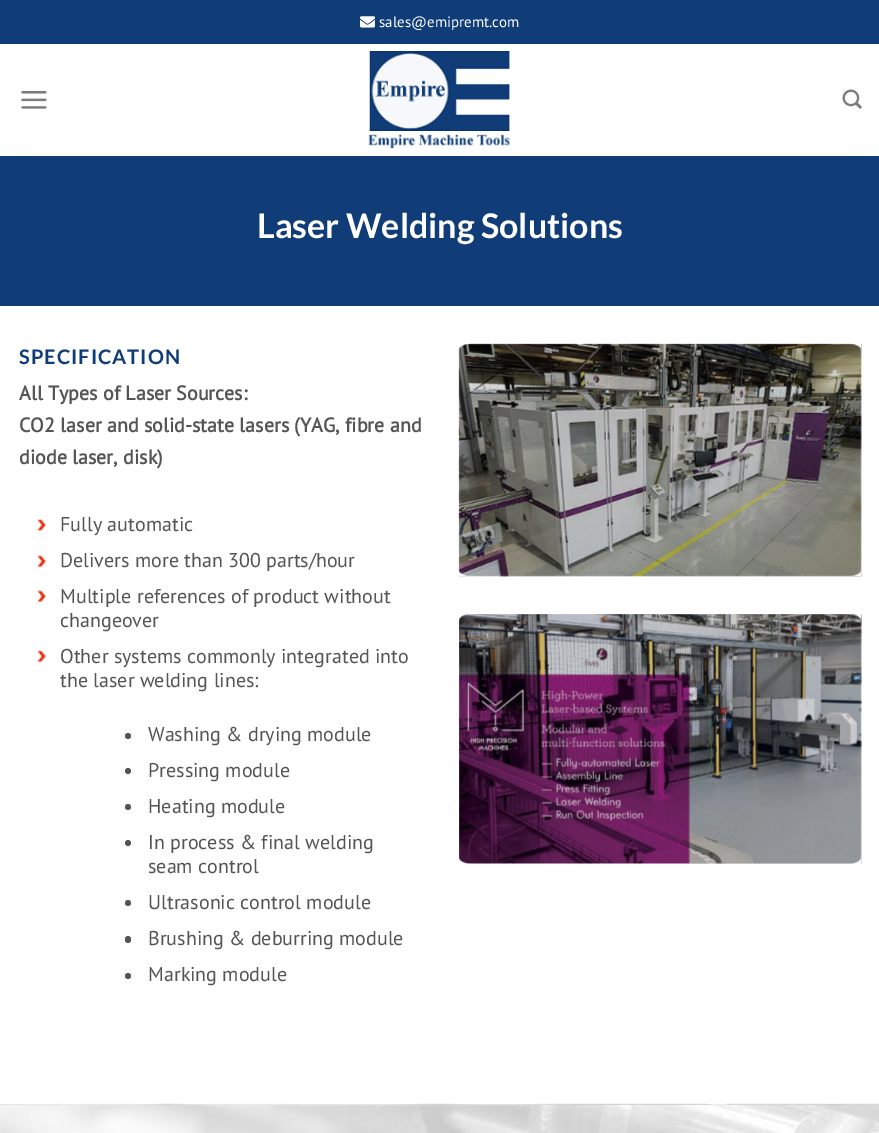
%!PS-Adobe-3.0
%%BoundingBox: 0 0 879 1133
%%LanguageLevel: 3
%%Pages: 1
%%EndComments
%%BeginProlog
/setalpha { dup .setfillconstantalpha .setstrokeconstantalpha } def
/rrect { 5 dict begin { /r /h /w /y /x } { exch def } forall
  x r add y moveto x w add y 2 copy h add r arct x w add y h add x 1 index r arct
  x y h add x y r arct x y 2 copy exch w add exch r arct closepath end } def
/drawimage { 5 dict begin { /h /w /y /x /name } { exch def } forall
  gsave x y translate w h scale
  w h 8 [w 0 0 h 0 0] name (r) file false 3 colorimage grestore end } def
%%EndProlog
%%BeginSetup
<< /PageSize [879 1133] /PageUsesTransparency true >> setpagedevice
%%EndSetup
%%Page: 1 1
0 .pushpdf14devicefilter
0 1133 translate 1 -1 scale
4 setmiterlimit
1 setgray
0 0 879 1133 rectfill
0.063 0.239 0.471 setrgbcolor
0 0 879 44 rectfill
(images/1.raw) 360 16 15 12 drawimage
(images/2.raw) 21 91 26 18 drawimage
(images/3.raw) 368 51 142 98 drawimage
(images/4.raw) 842 89 20 20 drawimage
0 156 879 150 rectfill
0.09 0.247 0.459 setrgbcolor
19 156 842 1 rectfill
(images/5.raw) 37 518 10 14 drawimage
(images/6.raw) 37 555 10 13 drawimage
(images/6.raw) 37 590 10 13 drawimage
(images/6.raw) 37 650 10 13 drawimage
0.333 setgray
newpath 128 736 3 0 360 arc closepath fill
newpath 128 771 3 0 360 arc closepath fill
newpath 128 807 3 0 360 arc closepath fill
newpath 128 843 3 0 360 arc closepath fill
newpath 128 903 3 0 360 arc closepath fill
125 936 6 7 3 rrect fill
newpath 128 976 3 0 360 arc closepath fill
(images/7.raw) 458 343 404 234 drawimage
0.15 setalpha
0 setgray
newpath 459 349 moveto 460 347 463 345 468 344 curveto 852 344 lineto 857 345 860 347 861 349 curveto 861 571 lineto 860 573 857 575 852 576 curveto 468 576 lineto 463 575 460 573 459 571 curveto closepath fill
1 setalpha
(images/8.raw) 459 614 403 250 drawimage
0.15 setalpha
newpath 459 620 moveto 460 617 463 615 468 614 curveto 852 614 lineto 857 615 860 617 861 620 curveto 861 858 lineto 860 861 855 864 849 864 curveto 471 864 lineto 465 864 460 861 459 858 curveto closepath fill
1 setalpha
(images/9.raw) 0 1103 879 30 drawimage
0.05 setalpha
0 1104 879 1 rectfill
/PTSans-Regular [15 0 0 -15 0 0] selectfont
1 setalpha
1 setgray
379 27 moveto (sales@emipremt.com) show
/Lato-Bold [34 0 0 -34 0 0] selectfont
257 238 moveto (Laser Welding Solutions) show
/Lato-Bold [20 0 0 -20 0 0] selectfont
0.063 0.239 0.471 setrgbcolor
19 364 moveto 1 0 (SPECIFICATION) ashow
/PTSans-Bold [20 0 0 -20 0 0] selectfont
0.333 setgray
19 400 moveto (All Types of Laser Sources:) show
19 432 moveto (CO2 laser and solid-state lasers \(YAG, fibre and) show
19 464 moveto (diode laser, disk\)) show
/PTSans-Regular [20 0 0 -20 0 0] selectfont
60 531 moveto (Fully automatic) show
60 567 moveto (Delivers more than 300 parts/hour) show
60 603 moveto (Multiple references of product without) show
60 627 moveto (changeover) show
60 663 moveto (Other systems commonly integrated into) show
60 687 moveto (the laser welding lines:) show
148 741 moveto (Washing & drying module) show
148 777 moveto (Pressing module) show
148 813 moveto (Heating module) show
148 849 moveto (In process & final welding) show
148 873 moveto (seam control) show
148 909 moveto (Ultrasonic control module) show
148 945 moveto (Brushing & deburring module) show
148 981 moveto (Marking module) show
.poppdf14devicefilter showpage
%%EOF
